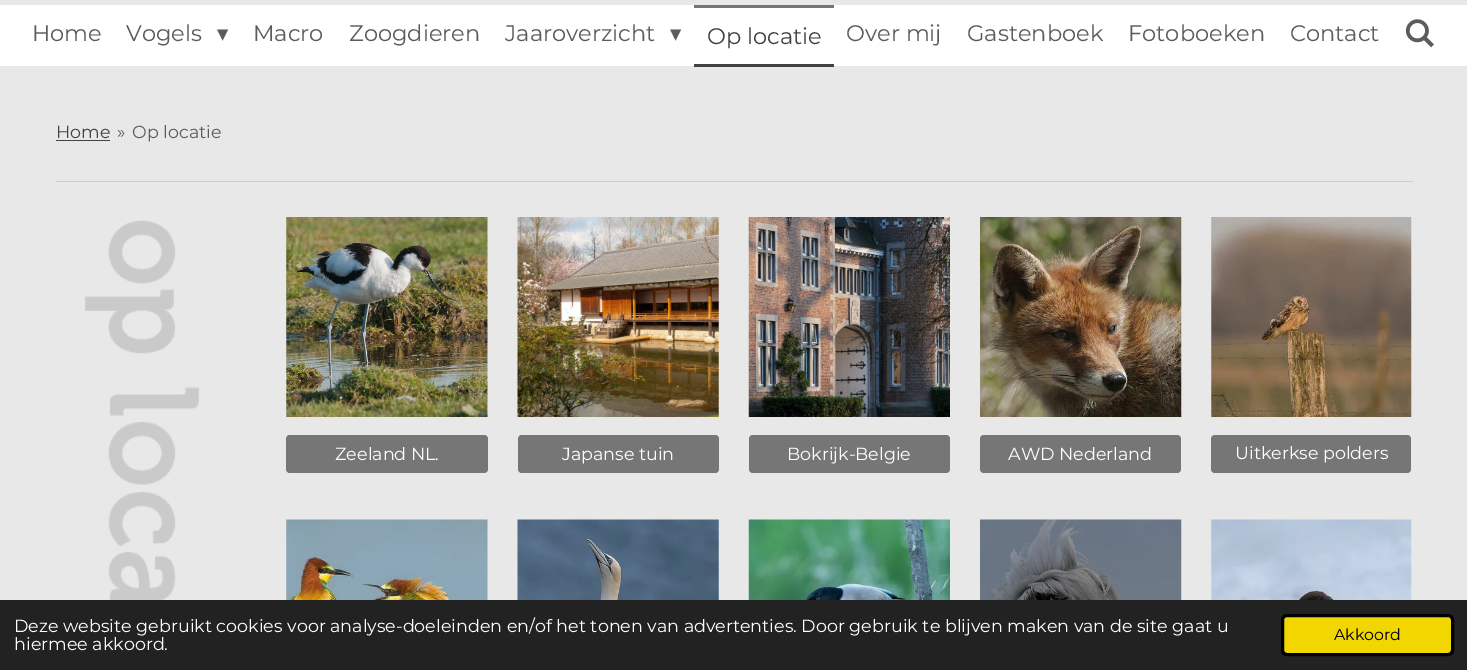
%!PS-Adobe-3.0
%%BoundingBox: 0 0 1467 670
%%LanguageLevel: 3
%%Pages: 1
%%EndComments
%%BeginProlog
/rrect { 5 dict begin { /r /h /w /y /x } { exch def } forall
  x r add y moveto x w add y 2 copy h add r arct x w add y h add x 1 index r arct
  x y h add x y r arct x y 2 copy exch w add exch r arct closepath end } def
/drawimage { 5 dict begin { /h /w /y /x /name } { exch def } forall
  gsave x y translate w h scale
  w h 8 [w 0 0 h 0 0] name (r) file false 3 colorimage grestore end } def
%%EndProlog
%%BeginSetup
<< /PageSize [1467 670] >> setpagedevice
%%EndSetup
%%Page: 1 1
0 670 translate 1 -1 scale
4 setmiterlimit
1 setgray
0 0 1467 670 rectfill
0.91 setgray
0 0 1467 5 rectfill
0.459 setgray
694 5 140 3 rectfill
0.91 setgray
0 66 1467 534 rectfill
0.259 setgray
694 64 140 3 rectfill
(images/1.raw) 1405 19 29 29 drawimage
56 140 54 1 rectfill
0.8 setgray
56 181 1357 1 rectfill
(images/2.raw) 85 220 114 380 drawimage
(images/3.raw) 286 217 202 200 drawimage
0.463 setgray
286 435 202 38 4 rrect fill
(images/4.raw) 286 519 202 81 drawimage
(images/5.raw) 517 217 202 200 drawimage
518 435 201 38 4 rrect fill
(images/6.raw) 517 519 202 81 drawimage
(images/7.raw) 748 217 202 200 drawimage
749 435 201 38 4 rrect fill
(images/8.raw) 748 519 202 81 drawimage
(images/9.raw) 980 217 202 200 drawimage
980 435 201 38 4 rrect fill
(images/10.raw) 980 519 202 81 drawimage
(images/11.raw) 1211 217 201 200 drawimage
1211 435 200 38 4 rrect fill
(images/12.raw) 1211 519 201 81 drawimage
0.133 setgray
0 600 1467 70 rectfill
0.945 0.839 0 setrgbcolor
1282.5 615.5 170 39 4.5 rrect gsave fill grestore
0 setgray
3 setlinewidth
stroke
/Montserrat-Regular [22.5 0 0 -22.5 0 0] selectfont
0.361 setgray
32 41 moveto (Home) show
126 41 moveto (Vogels) show
/DejaVuSans-Regular [22.5 0 0 -22.5 0 0] selectfont
217 41 moveto (▾) show
/Montserrat-Regular [22.5 0 0 -22.5 0 0] selectfont
253 41 moveto (Macro) show
349 41 moveto (Zoogdieren) show
505 41 moveto (Jaaroverzicht) show
/DejaVuSans-Regular [22.5 0 0 -22.5 0 0] selectfont
670 41 moveto (▾) show
/Montserrat-Regular [22.5 0 0 -22.5 0 0] selectfont
0.259 setgray
707 44 moveto (Op locatie) show
0.361 setgray
846 41 moveto (Over mij) show
967 41 moveto (Gastenboek) show
1128 41 moveto (Fotoboeken) show
1290 41 moveto (Contact) show
/Montserrat-Regular [17.5 0 0 -17.5 0 0] selectfont
0.259 setgray
56 138 moveto (Home) show
0.361 setgray
117 138 moveto (») show
132 138 moveto (Op locatie) show
1 setgray
335 460 moveto (Zeeland NL.) show
562 460 moveto (Japanse tuin) show
787 460 moveto (Bokrijk-Belgie) show
1008 460 moveto (AWD Nederland) show
1235 459 moveto (Uitkerkse polders) show
14 632 moveto (Deze website gebruikt cookies voor analyse-doeleinden en/of het tonen van advertenties. Door gebruik te blijven maken van de site gaat u) show
14 650 moveto (hiermee akkoord.) show
/Montserrat-Regular [15.75 0 0 -15.75 0 0] selectfont
0 setgray
1334 640 moveto (Akkoord) show
showpage
%%EOF
